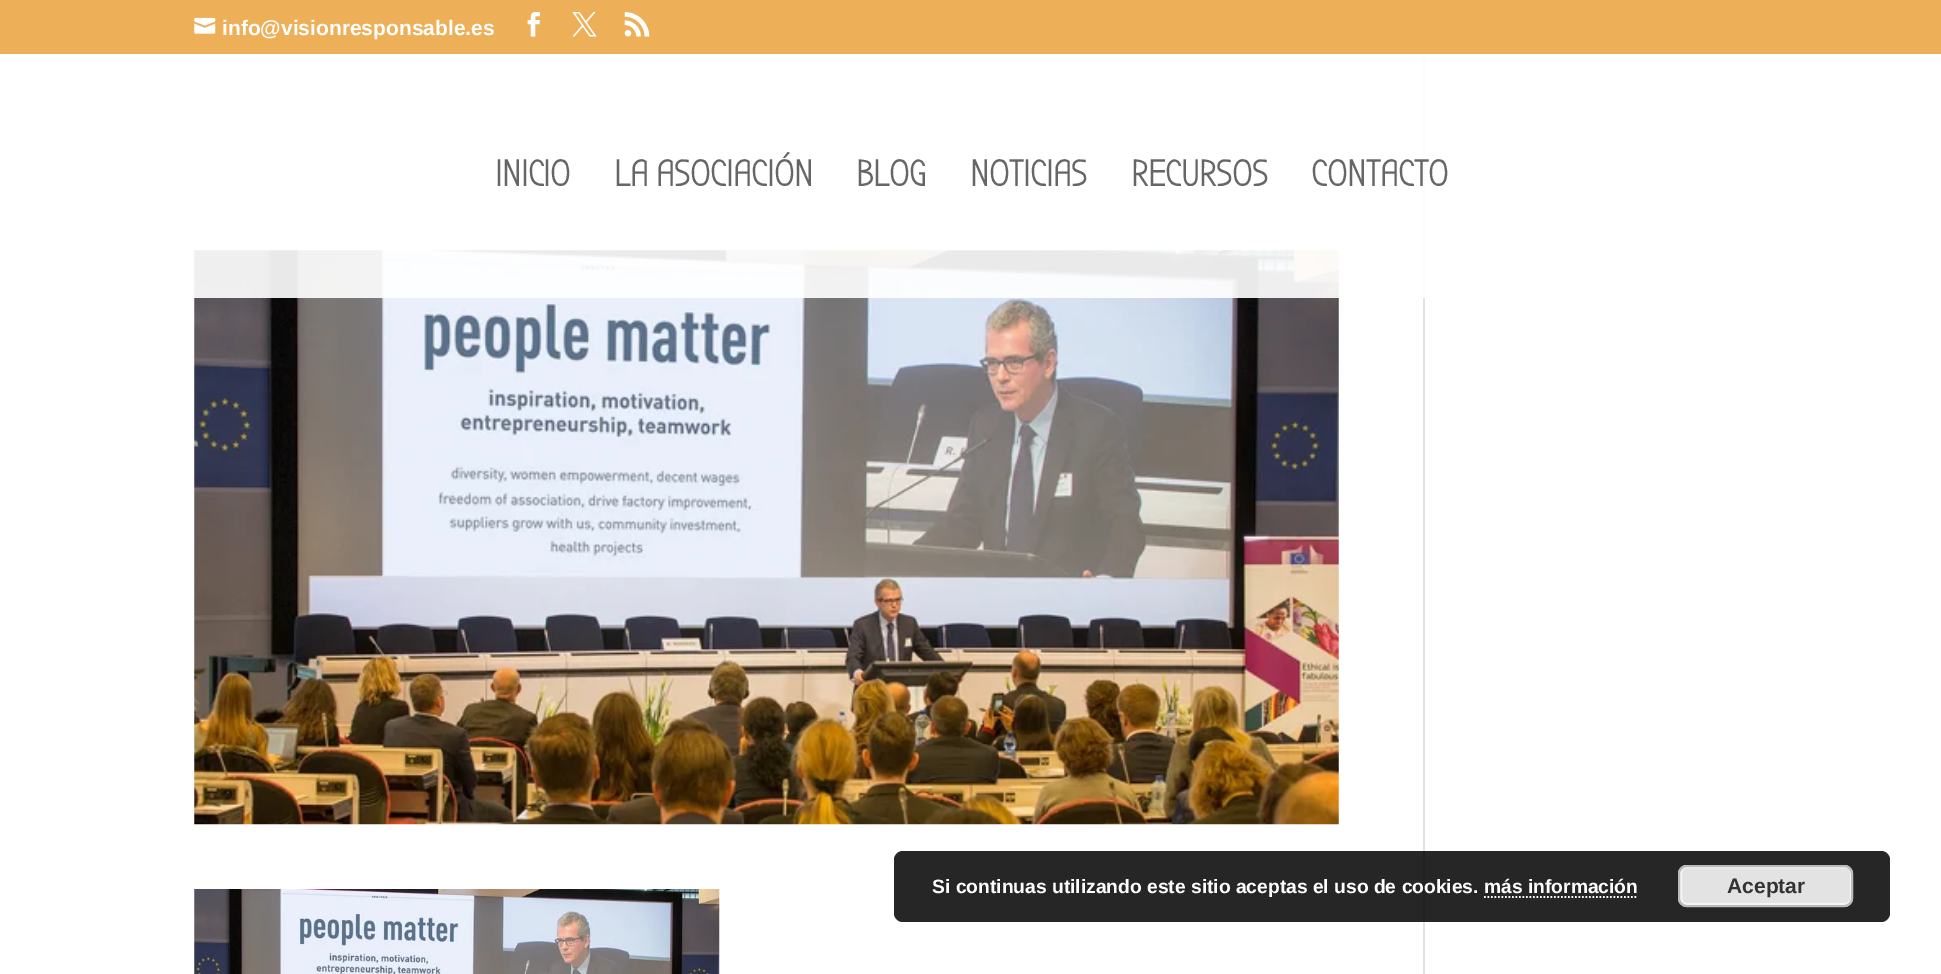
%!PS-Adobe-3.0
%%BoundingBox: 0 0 1941 974
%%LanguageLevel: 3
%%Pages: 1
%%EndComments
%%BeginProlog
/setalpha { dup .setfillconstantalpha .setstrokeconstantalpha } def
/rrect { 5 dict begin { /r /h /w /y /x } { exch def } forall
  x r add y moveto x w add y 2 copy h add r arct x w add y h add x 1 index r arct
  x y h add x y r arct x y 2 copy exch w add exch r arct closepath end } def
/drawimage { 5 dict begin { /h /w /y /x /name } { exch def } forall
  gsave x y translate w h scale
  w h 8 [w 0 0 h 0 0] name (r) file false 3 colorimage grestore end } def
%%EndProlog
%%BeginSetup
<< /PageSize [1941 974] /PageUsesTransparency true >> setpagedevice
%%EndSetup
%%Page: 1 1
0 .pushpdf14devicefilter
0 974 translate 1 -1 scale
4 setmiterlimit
1 setgray
0 0 1941 974 rectfill
0.929 0.69 0.349 setrgbcolor
0 0 1941 54 rectfill
(images/1.raw) 194 17 22 17 drawimage
(images/2.raw) 527 12 13 25 drawimage
(images/3.raw) 572 12 25 25 drawimage
(images/4.raw) 624 12 26 25 drawimage
(images/5.raw) 194 250 1145 575 drawimage
(images/6.raw) 194 889 526 85 drawimage
0.886 setgray
1423 54 2 920 rectfill
0.91 setalpha
1 setgray
194 54 1231 244 rectfill
0.85 setalpha
0 setgray
894 851 996 71 9 rrect fill
1 setalpha
0.89 setgray
1678 865 175 42 9 rrect fill
0.965 setgray
2 setlinewidth
1681 867 170 37 6 rrect stroke
0.733 setgray
1679 866 173 40 8 rrect stroke
1 setgray
1.8 setlinewidth
[1.75 1.75] 0 setdash
newpath 1484 897 moveto 1638 897 lineto stroke
/LiberationSans-Bold [21 0 0 -21 0 0] selectfont
222 35 moveto (info@visionresponsable.es) show
/BubblerOne-Bold [36.75 0 0 -36.75 0 0] selectfont
0.4 setgray
495 186 moveto (INICIO) show
614 186 moveto (LA ASOCIACIÓN) show
856 186 moveto (BLOG) show
970 186 moveto (NOTICIAS) show
1131 186 moveto (RECURSOS) show
1311 186 moveto (CONTACTO) show
/LiberationSans-Bold [19.25 0 0 -19.25 0 0] selectfont
1 setgray
932 893 moveto (Si continuas utilizando este sitio aceptas el uso de cookies. más información) show
/LiberationSans-Bold [21 0 0 -21 0 0] selectfont
0.2 setgray
1727 893 moveto (Aceptar) show
.poppdf14devicefilter showpage
%%EOF
